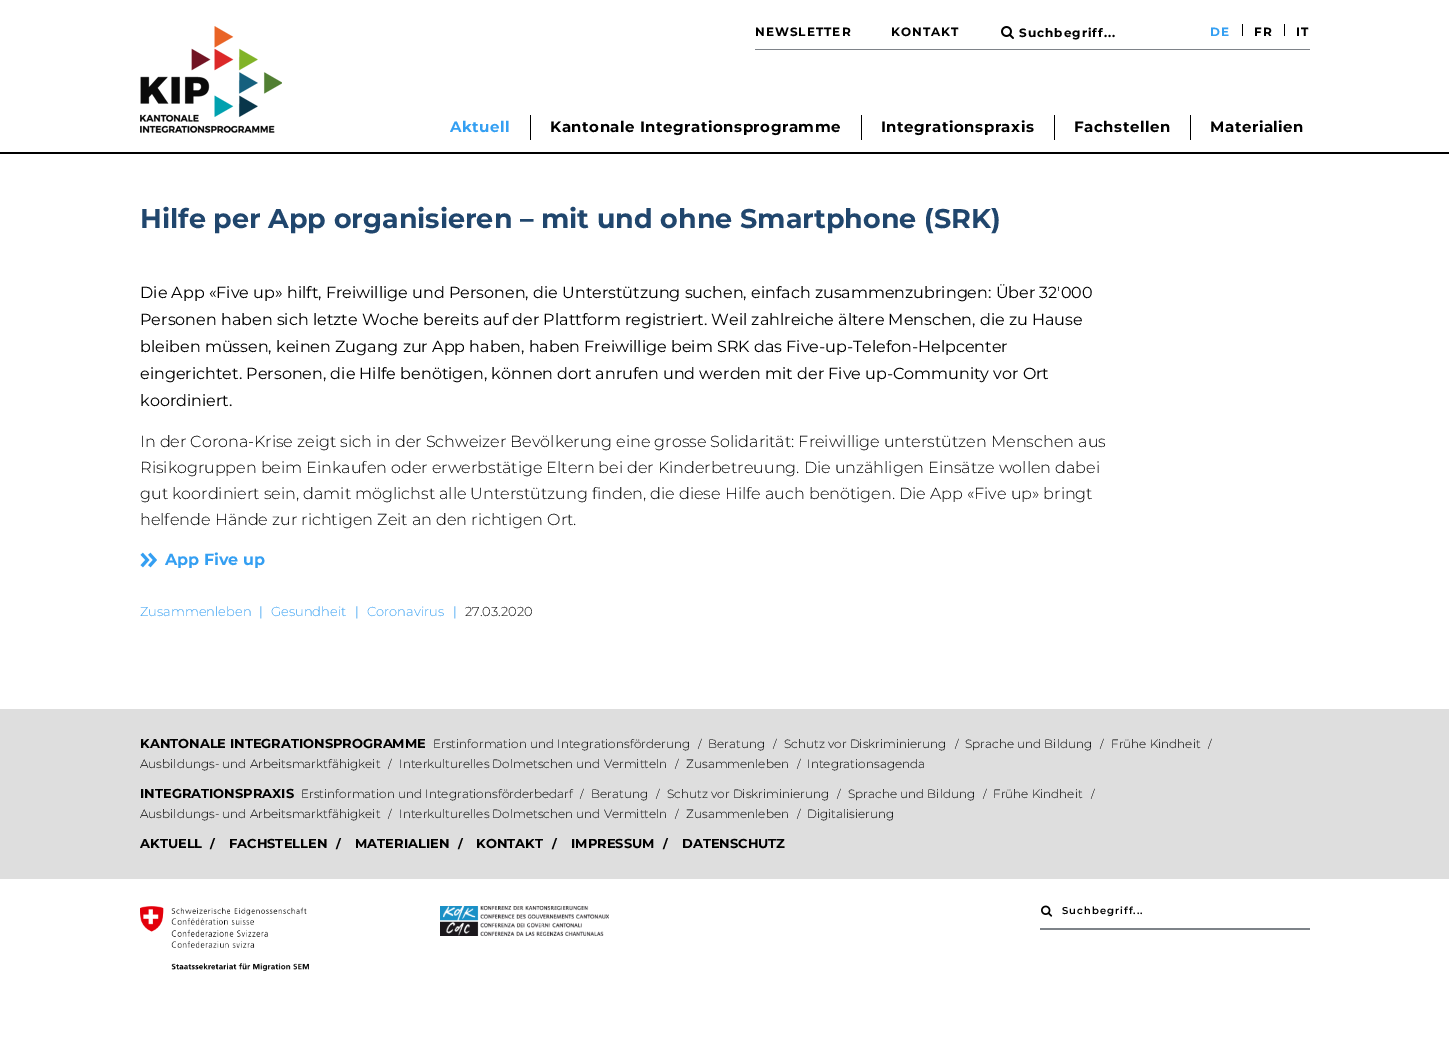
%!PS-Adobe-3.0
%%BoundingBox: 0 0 1449 1041
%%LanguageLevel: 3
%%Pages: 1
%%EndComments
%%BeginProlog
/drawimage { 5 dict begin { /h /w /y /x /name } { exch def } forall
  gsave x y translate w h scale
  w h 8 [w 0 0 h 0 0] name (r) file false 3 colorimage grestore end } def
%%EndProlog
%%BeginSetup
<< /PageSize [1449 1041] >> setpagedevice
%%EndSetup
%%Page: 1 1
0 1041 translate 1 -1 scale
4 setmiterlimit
1 setgray
0 0 1449 1041 rectfill
0 setgray
0 152 1449 2 rectfill
(images/1.raw) 140 26 142 107 drawimage
0.494 0.514 0.537 setrgbcolor
755 49 555 1 rectfill
(images/2.raw) 1001 26 13 13 drawimage
0 setgray
1242 24 1 12 rectfill
1284 24 1 12 rectfill
530 115 1 25 rectfill
861 115 1 25 rectfill
1054 115 1 25 rectfill
1190 115 1 25 rectfill
(images/3.raw) 140 552 17 16 drawimage
0.871 setgray
0 709 1449 170 rectfill
(images/4.raw) 140 906 169 65 drawimage
(images/5.raw) 440 906 169 30 drawimage
0.494 0.514 0.537 setrgbcolor
1040 928 270 2 rectfill
(images/6.raw) 1041 905 12 12 drawimage
/Montserrat-Bold [12 0 0 -12 0 0] selectfont
0 setgray
755 36 moveto 1 0 (NEWSLETTER) ashow
891 36 moveto 1 0 (KONTAKT) ashow
1019 37 moveto 1 0 (Suchbegriff...) ashow
0.204 0.624 0.949 setrgbcolor
1210 36 moveto 1 0 (DE) ashow
0 setgray
1254 36 moveto 1 0 (FR) ashow
1296 36 moveto 1 0 (IT) ashow
/Montserrat-Bold [15 0 0 -15 0 0] selectfont
0.204 0.624 0.949 setrgbcolor
450 132 moveto 0.5 0 (Aktuell) ashow
0 setgray
550 132 moveto 0.5 0 (Kantonale Integrationsprogramme) ashow
881 132 moveto 0.5 0 (Integrationspraxis) ashow
1074 132 moveto 0.5 0 (Fachstellen) ashow
1210 132 moveto 0.5 0 (Materialien) ashow
/Montserrat-Bold [27 0 0 -27 0 0] selectfont
0.125 0.275 0.427 setrgbcolor
140 228 moveto (Hilfe per App organisieren – mit und ohne Smartphone \(SRK\)) show
/Montserrat-Regular [16 0 0 -16 0 0] selectfont
0 setgray
140 298 moveto (Die App «Five up» hilft, Freiwillige und Personen, die Unterstützung suchen, einfach zusammenzubringen: Über 32'000) show
140 325 moveto (Personen haben sich letzte Woche bereits auf der Plattform registriert. Weil zahlreiche ältere Menschen, die zu Hause) show
140 352 moveto (bleiben müssen, keinen Zugang zur App haben, haben Freiwillige beim SRK das Five-up-Telefon-Helpcenter) show
140 379 moveto (eingerichtet. Personen, die Hilfe benötigen, können dort anrufen und werden mit der Five up-Community vor Ort) show
140 406 moveto (koordiniert.) show
/Montserrat-Light [16 0 0 -16 0 0] selectfont
140 447 moveto (In der Corona-Krise zeigt sich in der Schweizer Bevölkerung eine grosse Solidarität: Freiwillige unterstützen Menschen aus) show
140 473 moveto (Risikogruppen beim Einkaufen oder erwerbstätige Eltern bei der Kinderbetreuung. Die unzähligen Einsätze wollen dabei) show
140 499 moveto (gut koordiniert sein, damit möglichst alle Unterstützung finden, die diese Hilfe auch benötigen. Die App «Five up» bringt) show
140 525 moveto (helfende Hände zur richtigen Zeit an den richtigen Ort.) show
/Montserrat-Bold [16 0 0 -16 0 0] selectfont
0.204 0.624 0.949 setrgbcolor
165 565 moveto (App Five up) show
/Montserrat-Light [13 0 0 -13 0 0] selectfont
140 616 moveto (Zusammenleben) show
259 616 moveto (|) show
271 616 moveto (Gesundheit) show
355 616 moveto (|) show
367 616 moveto (Coronavirus) show
453 616 moveto (|) show
0 setgray
465 616 moveto (27.03.2020) show
/Montserrat-Bold [13 0 0 -13 0 0] selectfont
140 748 moveto (KANTONALE INTEGRATIONSPROGRAMME) show
/Montserrat-Light [12 0 0 -12 0 0] selectfont
433 748 moveto (Erstinformation und Integrationsförderung) show
/Montserrat-Light [11 0 0 -11 0 0] selectfont
698 748 moveto (/) show
/Montserrat-Light [12 0 0 -12 0 0] selectfont
708 748 moveto (Beratung) show
/Montserrat-Light [11 0 0 -11 0 0] selectfont
773 748 moveto (/) show
/Montserrat-Light [12 0 0 -12 0 0] selectfont
784 748 moveto (Schutz vor Diskriminierung) show
/Montserrat-Light [11 0 0 -11 0 0] selectfont
955 748 moveto (/) show
/Montserrat-Light [12 0 0 -12 0 0] selectfont
965 748 moveto (Sprache und Bildung) show
/Montserrat-Light [11 0 0 -11 0 0] selectfont
1100 748 moveto (/) show
/Montserrat-Light [12 0 0 -12 0 0] selectfont
1111 748 moveto (Frühe Kindheit) show
/Montserrat-Light [11 0 0 -11 0 0] selectfont
1208 748 moveto (/) show
/Montserrat-Light [12 0 0 -12 0 0] selectfont
140 768 moveto (Ausbildungs- und Arbeitsmarktfähigkeit) show
/Montserrat-Light [11 0 0 -11 0 0] selectfont
388 768 moveto (/) show
/Montserrat-Light [12 0 0 -12 0 0] selectfont
399 768 moveto (Interkulturelles Dolmetschen und Vermitteln) show
/Montserrat-Light [11 0 0 -11 0 0] selectfont
675 768 moveto (/) show
/Montserrat-Light [12 0 0 -12 0 0] selectfont
686 768 moveto (Zusammenleben) show
/Montserrat-Light [11 0 0 -11 0 0] selectfont
797 768 moveto (/) show
/Montserrat-Light [12 0 0 -12 0 0] selectfont
807 768 moveto (Integrationsagenda) show
/Montserrat-Bold [13 0 0 -13 0 0] selectfont
140 798 moveto (INTEGRATIONSPRAXIS) show
/Montserrat-Light [12 0 0 -12 0 0] selectfont
301 798 moveto (Erstinformation und Integrationsförderbedarf) show
/Montserrat-Light [11 0 0 -11 0 0] selectfont
580 798 moveto (/) show
/Montserrat-Light [12 0 0 -12 0 0] selectfont
591 798 moveto (Beratung) show
/Montserrat-Light [11 0 0 -11 0 0] selectfont
656 798 moveto (/) show
/Montserrat-Light [12 0 0 -12 0 0] selectfont
667 798 moveto (Schutz vor Diskriminierung) show
/Montserrat-Light [11 0 0 -11 0 0] selectfont
837 798 moveto (/) show
/Montserrat-Light [12 0 0 -12 0 0] selectfont
848 798 moveto (Sprache und Bildung) show
/Montserrat-Light [11 0 0 -11 0 0] selectfont
983 798 moveto (/) show
/Montserrat-Light [12 0 0 -12 0 0] selectfont
993 798 moveto (Frühe Kindheit) show
/Montserrat-Light [11 0 0 -11 0 0] selectfont
1091 798 moveto (/) show
/Montserrat-Light [12 0 0 -12 0 0] selectfont
140 818 moveto (Ausbildungs- und Arbeitsmarktfähigkeit) show
/Montserrat-Light [11 0 0 -11 0 0] selectfont
388 818 moveto (/) show
/Montserrat-Light [12 0 0 -12 0 0] selectfont
399 818 moveto (Interkulturelles Dolmetschen und Vermitteln) show
/Montserrat-Light [11 0 0 -11 0 0] selectfont
675 818 moveto (/) show
/Montserrat-Light [12 0 0 -12 0 0] selectfont
686 818 moveto (Zusammenleben) show
/Montserrat-Light [11 0 0 -11 0 0] selectfont
797 818 moveto (/) show
/Montserrat-Light [12 0 0 -12 0 0] selectfont
807 818 moveto (Digitalisierung) show
/Montserrat-Bold [13 0 0 -13 0 0] selectfont
140 848 moveto (AKTUELL) show
/Montserrat-Bold [12 0 0 -12 0 0] selectfont
210 848 moveto (/) show
/Montserrat-Bold [13 0 0 -13 0 0] selectfont
229 848 moveto (FACHSTELLEN) show
/Montserrat-Bold [12 0 0 -12 0 0] selectfont
336 848 moveto (/) show
/Montserrat-Bold [13 0 0 -13 0 0] selectfont
355 848 moveto (MATERIALIEN) show
/Montserrat-Bold [12 0 0 -12 0 0] selectfont
458 848 moveto (/) show
/Montserrat-Bold [13 0 0 -13 0 0] selectfont
476 848 moveto (KONTAKT) show
/Montserrat-Bold [12 0 0 -12 0 0] selectfont
552 848 moveto (/) show
/Montserrat-Bold [13 0 0 -13 0 0] selectfont
571 848 moveto (IMPRESSUM) show
/Montserrat-Bold [12 0 0 -12 0 0] selectfont
663 848 moveto (/) show
/Montserrat-Bold [13 0 0 -13 0 0] selectfont
682 848 moveto (DATENSCHUTZ) show
/Montserrat-SemiBold [10 0 0 -10 0 0] selectfont
1062 914 moveto 1 0 (Suchbegriff...) ashow
showpage
%%EOF
